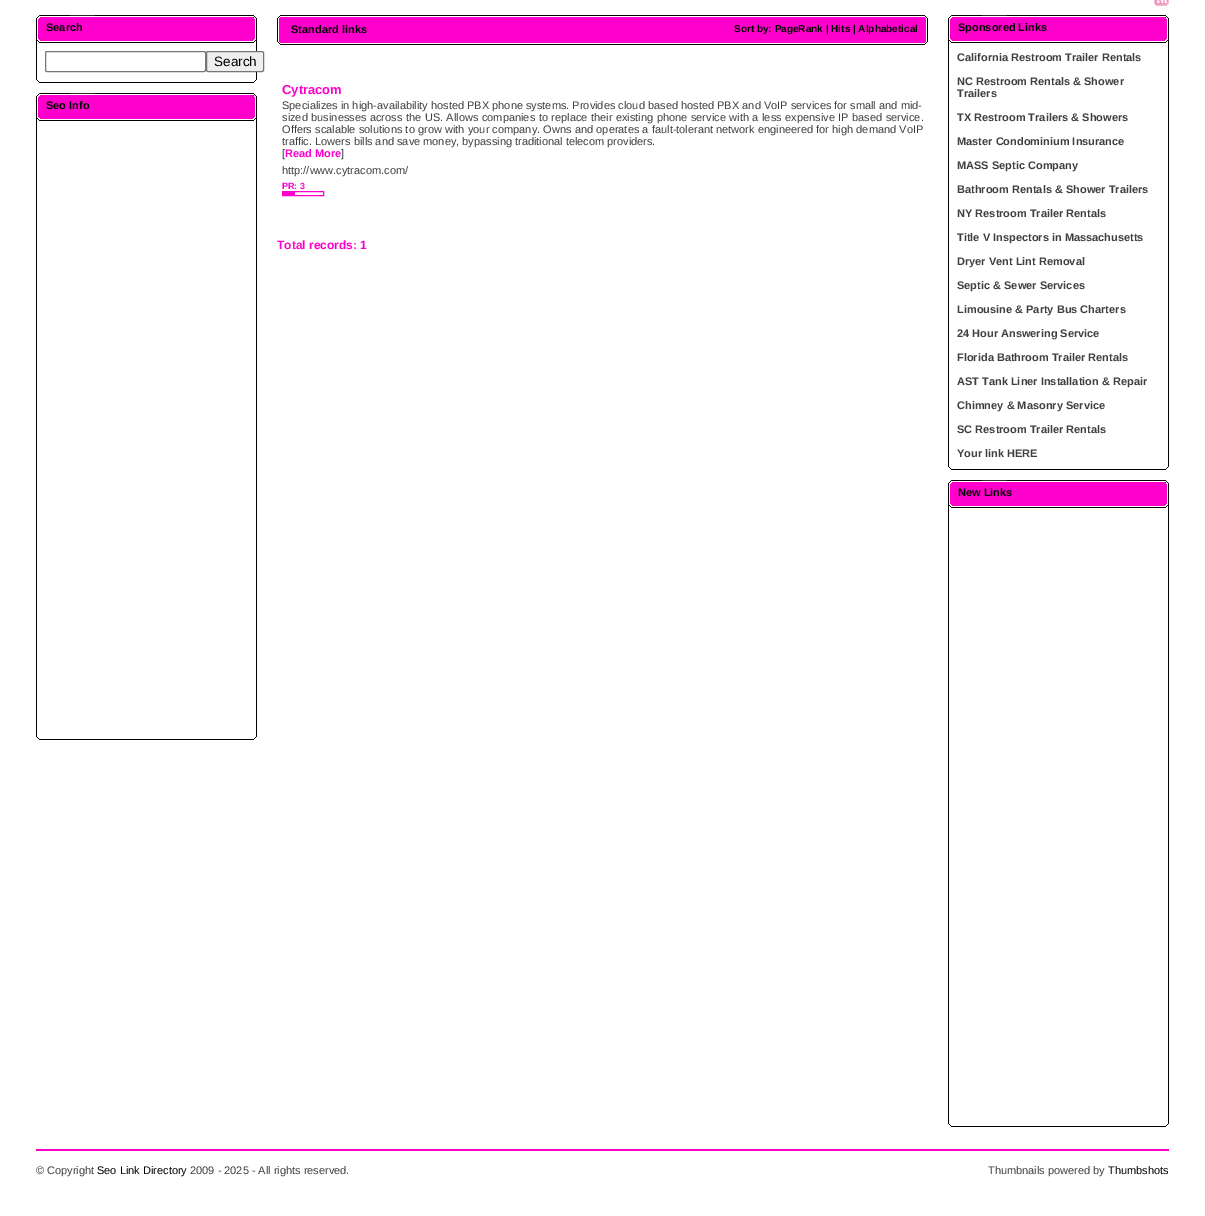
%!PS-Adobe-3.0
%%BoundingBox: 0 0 1205 1216
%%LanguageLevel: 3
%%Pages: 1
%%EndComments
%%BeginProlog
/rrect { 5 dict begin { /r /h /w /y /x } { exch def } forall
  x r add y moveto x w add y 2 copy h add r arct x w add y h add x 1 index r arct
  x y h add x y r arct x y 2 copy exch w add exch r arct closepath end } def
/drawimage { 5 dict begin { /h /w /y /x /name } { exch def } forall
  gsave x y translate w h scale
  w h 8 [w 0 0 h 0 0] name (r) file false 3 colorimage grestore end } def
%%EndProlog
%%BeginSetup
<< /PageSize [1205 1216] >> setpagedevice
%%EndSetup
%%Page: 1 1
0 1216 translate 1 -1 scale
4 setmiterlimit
1 setgray
0 0 1205 1216 rectfill
(images/1.raw) 1154 0 15 6 drawimage
(images/2.raw) 36 15 221 28 drawimage
0 setgray
256 43 1 37 rectfill
36 43 1 37 rectfill
0.463 setgray
45.5 51.5 160 20 1.5 rrect stroke
0.937 setgray
206.5 51.5 57 20 1.5 rrect gsave fill grestore
0.463 setgray
stroke
(images/3.raw) 37 80 219 3 drawimage
(images/2.raw) 36 93 221 28 drawimage
0 setgray
256 121 1 616 rectfill
36 121 1 616 rectfill
(images/3.raw) 37 737 219 3 drawimage
(images/4.raw) 280 15 645 30 drawimage
(images/5.raw) 277 15 3 30 drawimage
(images/6.raw) 925 15 3 30 drawimage
1 0 0.8 setrgbcolor
282.5 191.5 41 4 rectstroke
283 192 12 3 rectfill
(images/2.raw) 948 15 221 28 drawimage
0 setgray
1168 43 1 424 rectfill
948 43 1 424 rectfill
(images/3.raw) 949 467 219 3 drawimage
(images/2.raw) 948 480 221 28 drawimage
1168 508 1 616 rectfill
948 508 1 616 rectfill
(images/3.raw) 949 1124 219 3 drawimage
1 0 0.8 setrgbcolor
36 1149 1133 2 rectfill
/LiberationSans-Bold [11 0 0 -11 0 0] selectfont
0 setgray
46 31 moveto (Search) show
/LiberationSans-Regular [13.5 0 0 -13.5 0 0] selectfont
214 66 moveto (Search) show
/LiberationSans-Bold [11 0 0 -11 0 0] selectfont
46 109 moveto (Seo Info) show
291 33 moveto (Standard links) show
/LiberationSans-Bold [10 0 0 -10 0 0] selectfont
734 32 moveto (Sort by: PageRank | Hits | Alphabetical) show
/LiberationSans-Bold [13 0 0 -13 0 0] selectfont
1 0 0.8 setrgbcolor
282 94 moveto (Cytracom) show
/LiberationSans-Regular [11 0 0 -11 0 0] selectfont
0.247 setgray
282 109 moveto 0.1 0 32 (Specializes in high-availability hosted PBX phone systems. Provides cloud based hosted PBX and VoIP services for small and mid-) widthshow
282 121 moveto 0.5 0 32 (sized businesses across the US. Allows companies to replace their existing phone service with a less expensive IP based service.) widthshow
282 133 moveto 0.2 0 32 (Offers scalable solutions to grow with your company. Owns and operates a fault-tolerant network engineered for high demand VoIP) widthshow
282 145 moveto (traffic. Lowers bills and save money, bypassing traditional telecom providers.) show
282 157 moveto ([) show
/LiberationSans-Bold [11 0 0 -11 0 0] selectfont
1 0 0.8 setrgbcolor
285 157 moveto (Read More) show
/LiberationSans-Regular [11 0 0 -11 0 0] selectfont
0.247 setgray
341 157 moveto (]) show
282 174 moveto (http://www.cytracom.com/) show
/LiberationSans-Bold [9 0 0 -9 0 0] selectfont
1 0 0.8 setrgbcolor
282 189 moveto (PR: 3) show
/LiberationSans-Bold [12 0 0 -12 0 0] selectfont
277 249 moveto (Total records: 1) show
/LiberationSans-Bold [11 0 0 -11 0 0] selectfont
0 setgray
958 31 moveto (Sponsored Links) show
0.247 setgray
957 61 moveto (California Restroom Trailer Rentals) show
957 85 moveto (NC Restroom Rentals & Shower) show
957 97 moveto (Trailers) show
957 121 moveto (TX Restroom Trailers & Showers) show
957 145 moveto (Master Condominium Insurance) show
957 169 moveto (MASS Septic Company) show
957 193 moveto (Bathroom Rentals & Shower Trailers) show
957 217 moveto (NY Restroom Trailer Rentals) show
957 241 moveto (Title V Inspectors in Massachusetts) show
957 265 moveto (Dryer Vent Lint Removal) show
957 289 moveto (Septic & Sewer Services) show
957 313 moveto (Limousine & Party Bus Charters) show
957 337 moveto (24 Hour Answering Service) show
957 361 moveto (Florida Bathroom Trailer Rentals) show
957 385 moveto (AST Tank Liner Installation & Repair) show
957 409 moveto (Chimney & Masonry Service) show
957 433 moveto (SC Restroom Trailer Rentals) show
957 457 moveto (Your link HERE) show
0 setgray
958 496 moveto (New Links) show
/LiberationSans-Regular [11 0 0 -11 0 0] selectfont
0.247 setgray
36 1174 moveto (© Copyright) show
0 setgray
97 1174 moveto (Seo Link Directory) show
0.247 setgray
190 1174 moveto (2009 - 2025 - All rights reserved.) show
988 1174 moveto (Thumbnails powered by) show
0 setgray
1108 1174 moveto (Thumbshots) show
showpage
%%EOF
